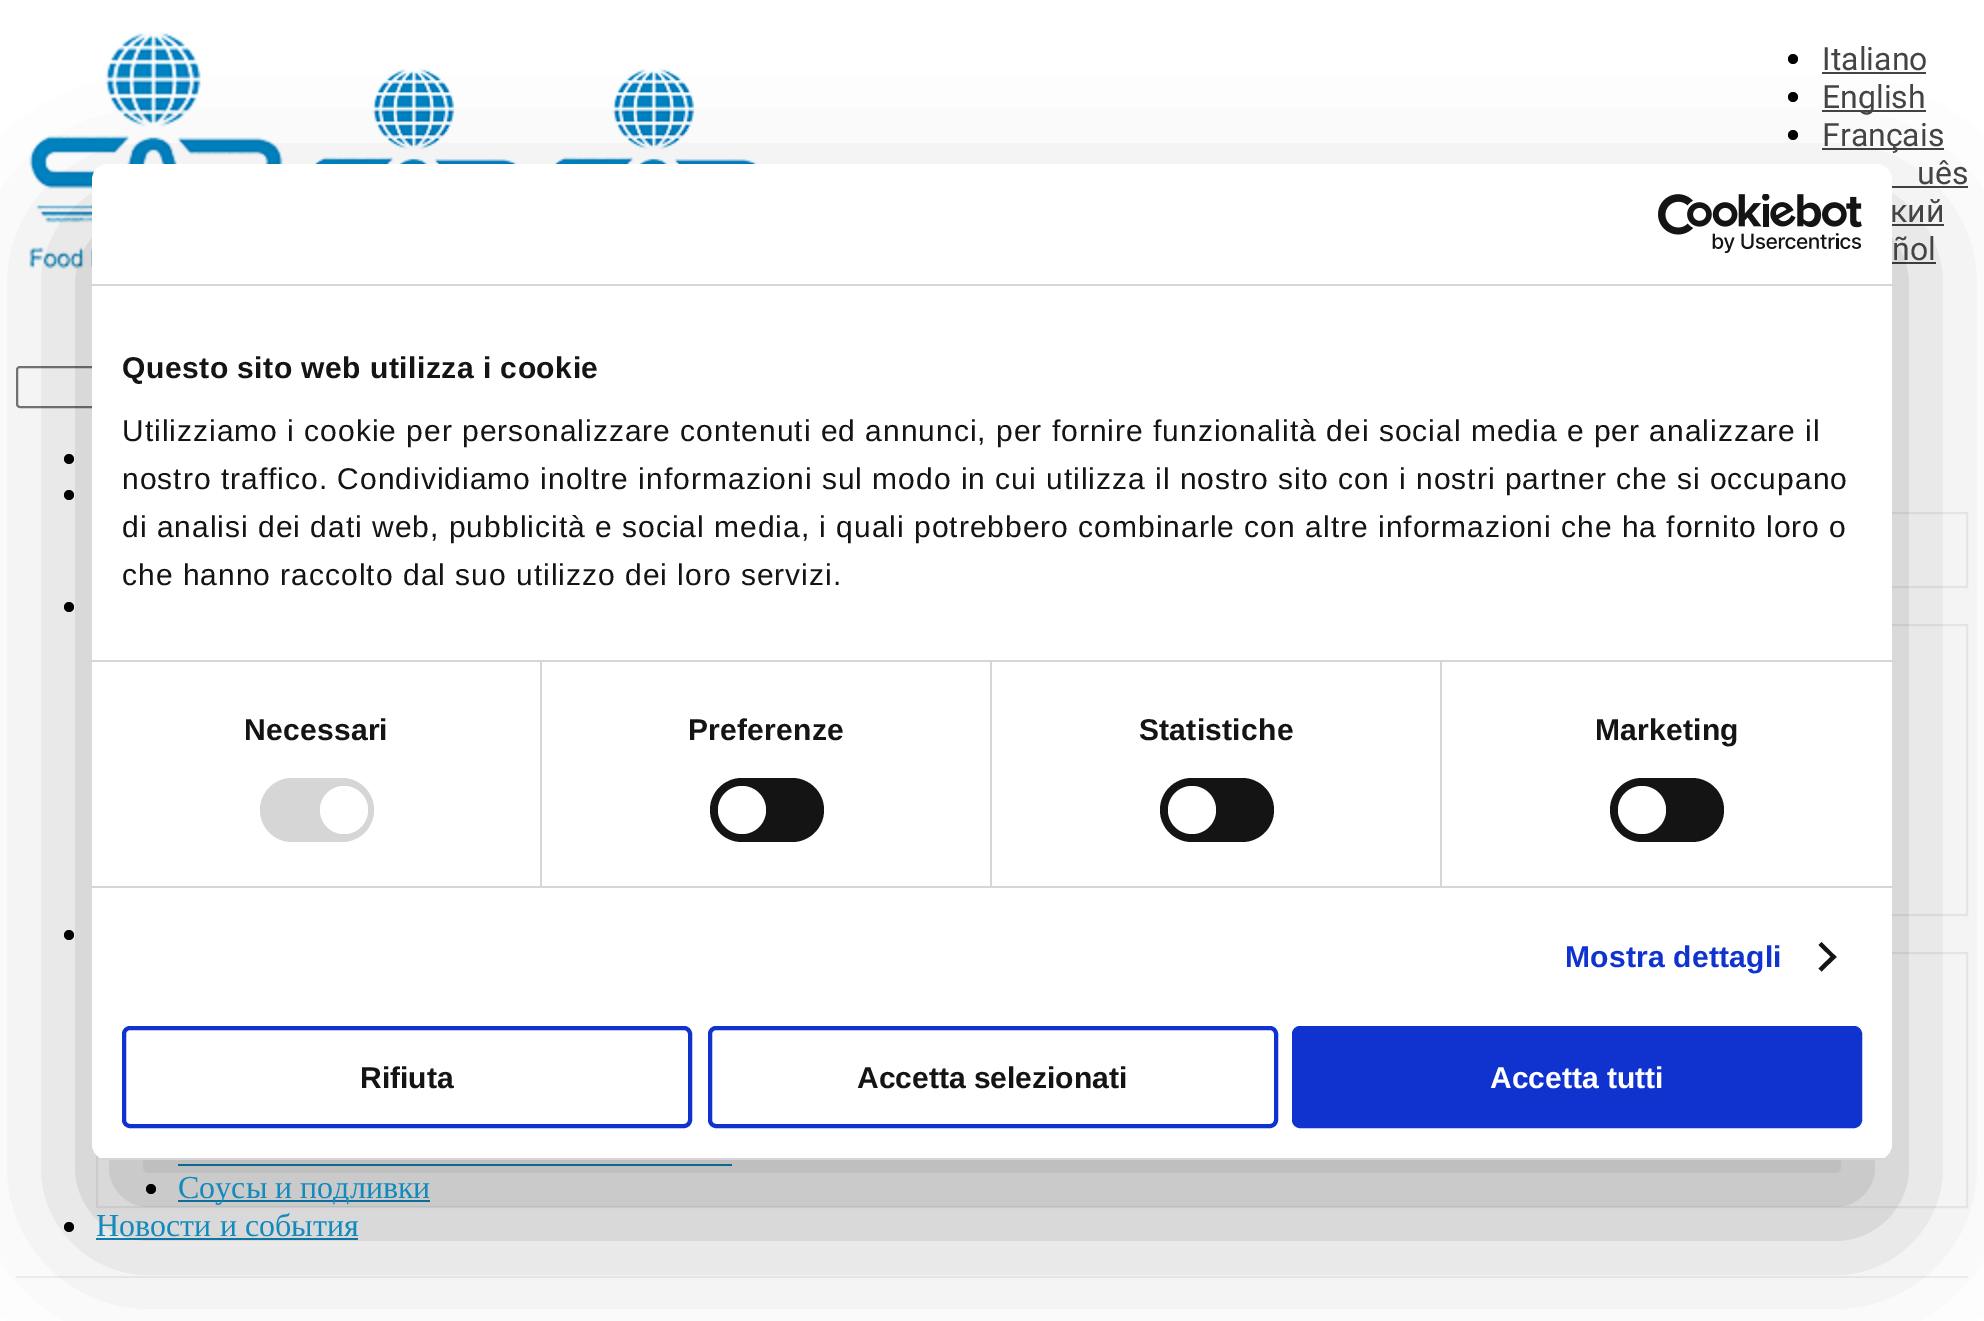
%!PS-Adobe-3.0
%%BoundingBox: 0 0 1984 1321
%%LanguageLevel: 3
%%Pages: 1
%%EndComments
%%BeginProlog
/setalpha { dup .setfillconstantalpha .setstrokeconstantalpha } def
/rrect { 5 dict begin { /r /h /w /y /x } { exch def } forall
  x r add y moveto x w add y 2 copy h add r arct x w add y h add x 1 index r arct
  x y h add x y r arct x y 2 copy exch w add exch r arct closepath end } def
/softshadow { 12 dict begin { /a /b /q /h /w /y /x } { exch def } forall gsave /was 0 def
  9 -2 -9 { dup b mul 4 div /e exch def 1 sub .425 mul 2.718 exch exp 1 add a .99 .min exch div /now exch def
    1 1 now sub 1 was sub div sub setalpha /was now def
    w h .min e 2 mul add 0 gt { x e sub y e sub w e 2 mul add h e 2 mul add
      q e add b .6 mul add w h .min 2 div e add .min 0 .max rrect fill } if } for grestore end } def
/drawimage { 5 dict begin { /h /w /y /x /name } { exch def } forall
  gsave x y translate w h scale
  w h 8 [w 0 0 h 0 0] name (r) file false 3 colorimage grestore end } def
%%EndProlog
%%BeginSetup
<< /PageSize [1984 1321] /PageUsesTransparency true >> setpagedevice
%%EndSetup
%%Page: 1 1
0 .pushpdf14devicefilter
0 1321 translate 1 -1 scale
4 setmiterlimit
1 setgray
0 0 1984 1321 rectfill
0 setgray
newpath 1793 59 5 0 360 arc closepath fill
0.267 setgray
1822 72 104 2 rectfill
0 setgray
newpath 1793 97 5 0 360 arc closepath fill
0.267 setgray
1822 110 104 2 rectfill
0 setgray
newpath 1793 135 5 0 360 arc closepath fill
0.267 setgray
1822 148 122 2 rectfill
1892 186 76 2 rectfill
1892 224 52 2 rectfill
1892 262 44 2 rectfill
0.941 setgray
16 1276 1952 2 rectfill
(images/1.raw) 29 32 254 237 drawimage
(images/2.raw) 314 68 207 96 drawimage
(images/3.raw) 554 68 207 96 drawimage
0.463 setgray
2 setlinewidth
17 367 368 40 3 rrect stroke
0 setgray
newpath 69 459 5 0 360 arc closepath fill
newpath 69 495 5 0 360 arc closepath fill
0.937 setgray
97 513 1870 74 rectstroke
0 setgray
newpath 69 607 5 0 360 arc closepath fill
0.937 setgray
97 625 1870 290 rectstroke
0 setgray
newpath 69 935 5 0 360 arc closepath fill
0.937 setgray
97 953 1870 254 rectstroke
0.071 0.541 0.737 setrgbcolor
178 1164 554 2 rectfill
0 setgray
newpath 151 1189 5 0 360 arc closepath fill
0.071 0.541 0.737 setrgbcolor
178 1200 252 2 rectfill
0 setgray
newpath 69 1227 5 0 360 arc closepath fill
0.071 0.541 0.737 setrgbcolor
96 1238 262 2 rectfill
0 setgray
92 228 1800 996 16 68 0.3 softshadow
1 setgray
92 164 1800 996 16 rrect fill
0.839 setgray
92 284 1800 2 rectfill
(images/4.raw) 1658 194 204 60 drawimage
92 660 1800 2 rectfill
92 886 1800 2 rectfill
540 662 2 224 rectfill
260 778 114 64 32 rrect fill
1 setgray
newpath 344 810 24 0 360 arc closepath fill
0.839 setgray
990 662 2 224 rectfill
0.078 setgray
710 778 114 64 32 rrect fill
1 setgray
newpath 742 810 24 0 360 arc closepath fill
0.839 setgray
1440 662 2 224 rectfill
0.078 setgray
1160 778 114 64 32 rrect fill
1 setgray
newpath 1192 810 24 0 360 arc closepath fill
0.078 setgray
1610 778 114 64 32 rrect fill
1 setgray
newpath 1642 810 24 0 360 arc closepath fill
0.078 setgray
newpath 1821.5 942 moveto 1836.5 957 lineto 1833.5 959.5 lineto 1818.5 945 lineto closepath fill
newpath 1833.5 954 moveto 1836.5 957 lineto 1821.5 971.5 lineto 1818.5 968.5 lineto closepath fill
gsave
92 164 1800 996 16 rrect clip newpath
0.839 setgray
92 1158 1800 2 rectfill
grestore
0.063 0.196 0.812 setrgbcolor
4 setlinewidth
124 1028 566 98 6 rrect stroke
710 1028 566 98 6 rrect stroke
1294 1028 566 98 6 rrect gsave fill grestore
stroke
/Roboto-Regular [32 0 0 -32 0 0] selectfont
0.267 setgray
1822 70 moveto (Italiano) show
1822 108 moveto (English) show
1822 146 moveto (Français) show
1917 184 moveto (uês) show
1890 222 moveto (кий) show
1892 260 moveto (ñol) show
/LiberationSerif-Regular [32 0 0 -32 0 0] selectfont
0.071 0.541 0.737 setrgbcolor
178 1198 moveto (Соусы и подливки) show
96 1236 moveto (Новости и события) show
/LiberationSans-Bold [30 0 0 -30 0 0] selectfont
0.078 setgray
122 378 moveto 0.5 0 (Questo sito web utilizza i cookie) ashow
/LiberationSans-Regular [30 0 0 -30 0 0] selectfont
122 441 moveto 1 0 (Utilizziamo i cookie per personalizzare contenuti ed annunci, per fornire funzionalità dei social media e per analizzare il) ashow
122 489 moveto 1 0 (nostro traffico. Condividiamo inoltre informazioni sul modo in cui utilizza il nostro sito con i nostri partner che si occupano) ashow
122 537 moveto 1 0 (di analisi dei dati web, pubblicità e social media, i quali potrebbero combinarle con altre informazioni che ha fornito loro o) ashow
122 585 moveto 1 0 (che hanno raccolto dal suo utilizzo dei loro servizi.) ashow
/LiberationSans-Bold [30 0 0 -30 0 0] selectfont
244 740 moveto 0.25 0 (Necessari) ashow
688 740 moveto 0.25 0 (Preferenze) ashow
1139 740 moveto 0.25 0 (Statistiche) ashow
1595 740 moveto 0.25 0 (Marketing) ashow
0.063 0.196 0.812 setrgbcolor
1565 967 moveto 0.25 0 (Mostra dettagli) ashow
0.078 setgray
360 1088 moveto (Rifiuta) show
857 1088 moveto (Accetta selezionati) show
1 setgray
1490 1088 moveto (Accetta tutti) show
.poppdf14devicefilter showpage
%%EOF
